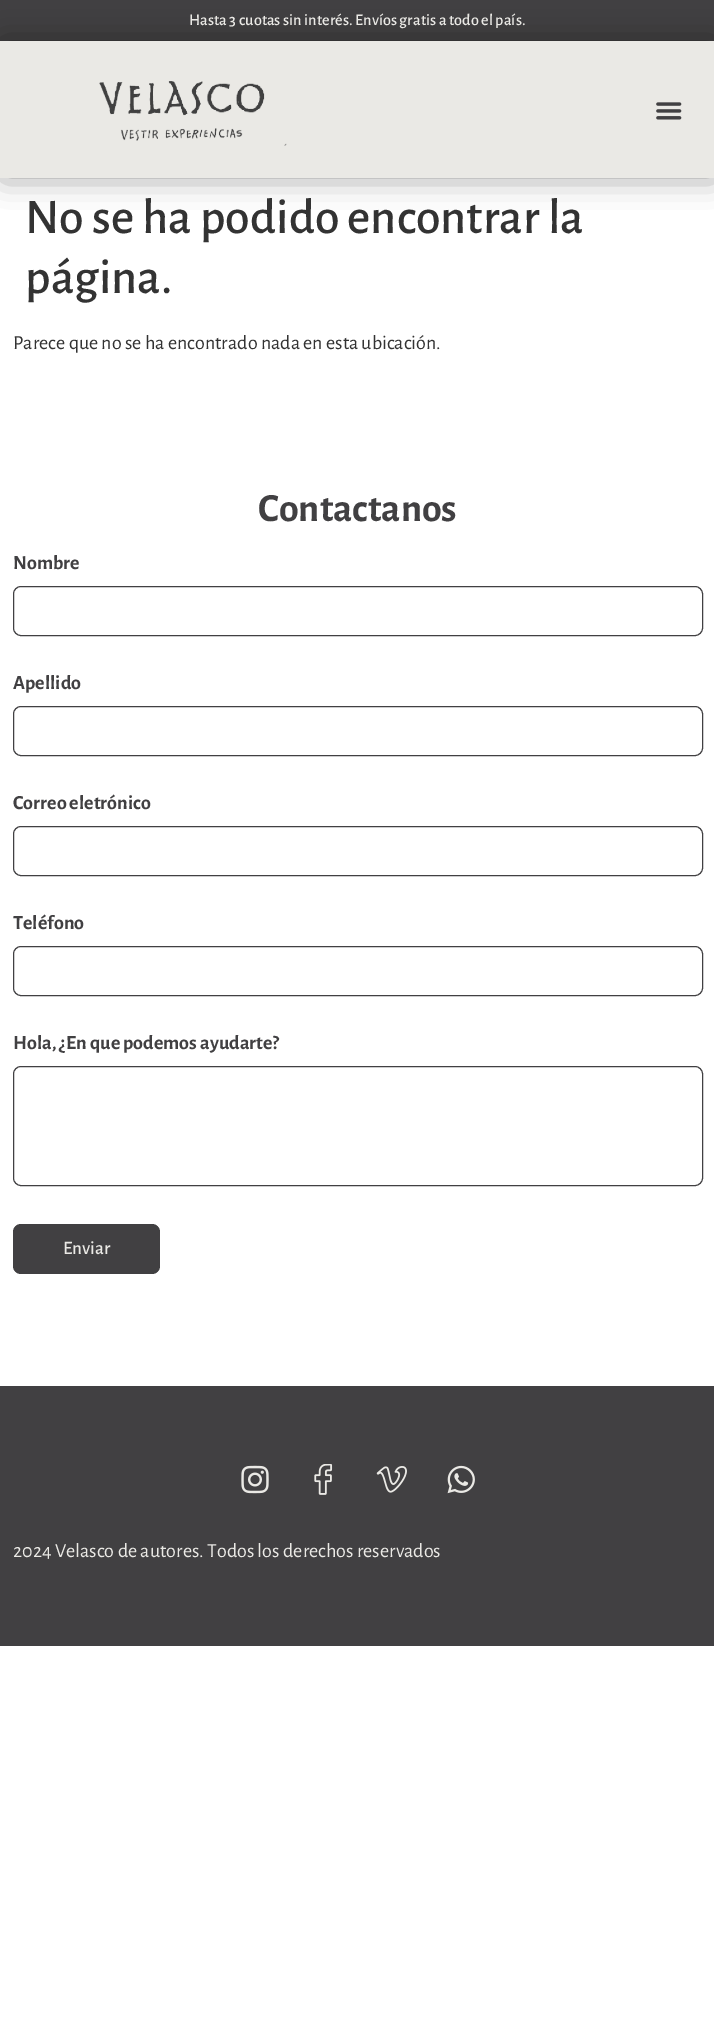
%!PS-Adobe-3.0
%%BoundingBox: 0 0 714 2037
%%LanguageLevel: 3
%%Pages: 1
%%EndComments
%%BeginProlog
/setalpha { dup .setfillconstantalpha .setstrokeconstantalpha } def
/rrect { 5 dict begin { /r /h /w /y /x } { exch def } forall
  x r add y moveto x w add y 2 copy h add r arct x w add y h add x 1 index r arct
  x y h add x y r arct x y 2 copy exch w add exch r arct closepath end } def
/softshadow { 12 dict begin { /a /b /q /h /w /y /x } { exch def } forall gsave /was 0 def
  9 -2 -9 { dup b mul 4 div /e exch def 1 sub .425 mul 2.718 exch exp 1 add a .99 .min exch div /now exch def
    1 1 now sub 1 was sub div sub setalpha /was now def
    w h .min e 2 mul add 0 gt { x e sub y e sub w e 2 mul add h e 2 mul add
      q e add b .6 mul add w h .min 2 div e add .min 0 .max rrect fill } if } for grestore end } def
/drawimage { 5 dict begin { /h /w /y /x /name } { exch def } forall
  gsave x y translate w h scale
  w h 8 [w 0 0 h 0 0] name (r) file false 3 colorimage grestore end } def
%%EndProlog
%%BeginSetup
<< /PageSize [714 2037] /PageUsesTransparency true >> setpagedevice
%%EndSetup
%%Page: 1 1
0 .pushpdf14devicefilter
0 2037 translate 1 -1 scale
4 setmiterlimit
1 setgray
0 0 714 2037 rectfill
0.255 0.251 0.259 setrgbcolor
0 0 714 41 rectfill
0 setgray
4 44 710 131 0 15.5 0.45 softshadow
0.918 0.914 0.898 setrgbcolor
0 41 714 137 rectfill
(images/1.raw) 99 81 188 65 drawimage
(images/2.raw) 656 102 26 18 drawimage
0.255 0.251 0.259 setrgbcolor
13.5 586.5 689 49 7.5 rrect stroke
13.5 706.5 689 49 7.5 rrect stroke
13.5 826.5 689 49 7.5 rrect stroke
13.5 946.5 689 49 7.5 rrect stroke
13.5 1066.5 689 119 7.5 rrect stroke
13 1224 147 50 8 rrect fill
0 1386 714 260 rectfill
(images/3.raw) 241 1465 28 29 drawimage
(images/4.raw) 314 1464 19 31 drawimage
(images/5.raw) 376 1466 31 27 drawimage
(images/6.raw) 447 1465 28 29 drawimage
/AlegreyaSans-Medium [16.25 0 0 -16.25 0 0] selectfont
0.918 0.914 0.898 setrgbcolor
189 25 moveto (Hasta 3 cuotas sin interés. Envíos gratis a todo el país.) show
/AlegreyaSans-Medium [50 0 0 -50 0 0] selectfont
0.2 setgray
25 233 moveto (No se ha podido encontrar la) show
25 293 moveto (página.) show
/AlegreyaSans-Regular [20 0 0 -20 0 0] selectfont
13 349 moveto (Parece que no se ha encontrado nada en esta ubicación.) show
/AlegreyaSans-Bold [40 0 0 -40 0 0] selectfont
0.255 0.251 0.259 setrgbcolor
258 521 moveto (Contactanos) show
/AlegreyaSans-Bold [20 0 0 -20 0 0] selectfont
13 569 moveto (Nombre) show
13 689 moveto (Apellido) show
13 809 moveto (Correo eletrónico) show
13 929 moveto (Teléfono) show
13 1049 moveto (Hola, ¿En que podemos ayudarte?) show
/AlegreyaSans-Medium [19 0 0 -19 0 0] selectfont
0.918 0.914 0.898 setrgbcolor
63 1254 moveto (Enviar) show
/AlegreyaSans-Regular [20 0 0 -20 0 0] selectfont
13 1557 moveto (2024 Velasco de autores. Todos los derechos reservados) show
.poppdf14devicefilter showpage
%%EOF
